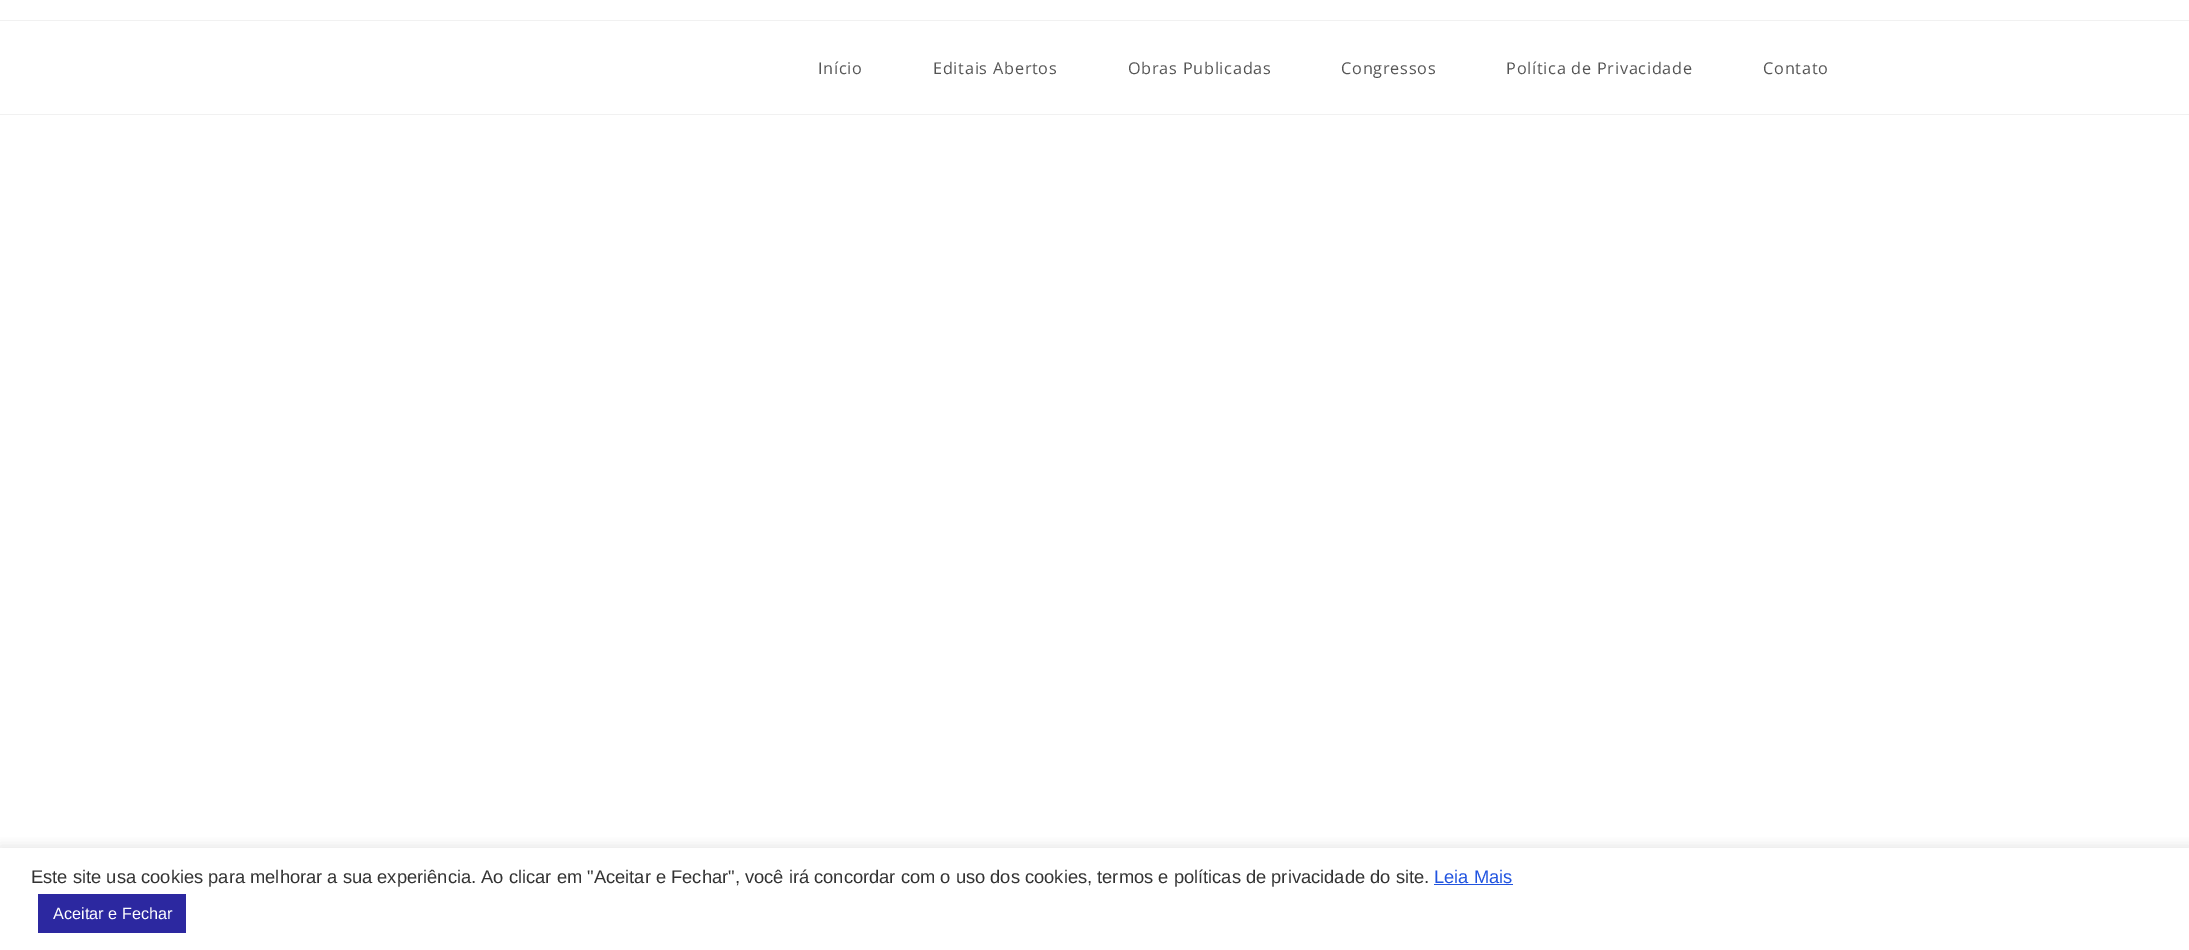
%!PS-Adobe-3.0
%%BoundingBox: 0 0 2189 950
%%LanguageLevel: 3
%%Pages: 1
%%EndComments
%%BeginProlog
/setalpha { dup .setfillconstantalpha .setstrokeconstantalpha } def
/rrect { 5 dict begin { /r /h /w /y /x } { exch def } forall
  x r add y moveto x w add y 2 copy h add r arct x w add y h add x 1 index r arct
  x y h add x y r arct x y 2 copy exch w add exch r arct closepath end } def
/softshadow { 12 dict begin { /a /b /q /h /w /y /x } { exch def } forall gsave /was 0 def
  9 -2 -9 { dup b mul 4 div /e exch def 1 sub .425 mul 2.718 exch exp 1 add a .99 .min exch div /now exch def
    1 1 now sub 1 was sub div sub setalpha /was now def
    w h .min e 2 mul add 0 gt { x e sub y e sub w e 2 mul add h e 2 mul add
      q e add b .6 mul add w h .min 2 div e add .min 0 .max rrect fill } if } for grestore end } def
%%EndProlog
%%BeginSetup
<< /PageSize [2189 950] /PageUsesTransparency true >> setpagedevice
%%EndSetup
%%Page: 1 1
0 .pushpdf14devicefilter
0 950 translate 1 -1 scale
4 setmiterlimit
1 setgray
0 0 2189 950 rectfill
0.945 setgray
0 20 2189 1 rectfill
0 114 2189 1 rectfill
gsave
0 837 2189 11 rectclip
0.675 0.671 0.671 setrgbcolor
0 846 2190 103 0 6 0.3 softshadow
grestore
0.129 0.329 0.878 setrgbcolor
1434 884 79 1 rectfill
0.173 0.157 0.627 setrgbcolor
38 894 148 39 rectfill
/OpenSans-Regular [16.25 0 0 -16.25 0 0] selectfont
0.333 setgray
818 74 moveto 0.75 0 (Início) ashow
933 74 moveto 0.75 0 (Editais Abertos) ashow
1128 74 moveto 0.75 0 (Obras Publicadas) ashow
1341 74 moveto 0.75 0 (Congressos) ashow
1506 74 moveto 0.75 0 (Política de Privacidade) ashow
1763 74 moveto 0.75 0 (Contato) ashow
/LiberationSans-Regular [18.33 0 0 -18.33 0 0] selectfont
0.2 setgray
31 883 moveto (Este site usa cookies para melhorar a sua experiência. Ao clicar em "Aceitar e Fechar", você irá concordar com o uso dos cookies, termos e políticas de privacidade do site.) show
0.129 0.329 0.878 setrgbcolor
1434 883 moveto (Leia Mais) show
/LiberationSans-Regular [16.25 0 0 -16.25 0 0] selectfont
1 setgray
53 919 moveto (Aceitar e Fechar) show
.poppdf14devicefilter showpage
%%EOF
